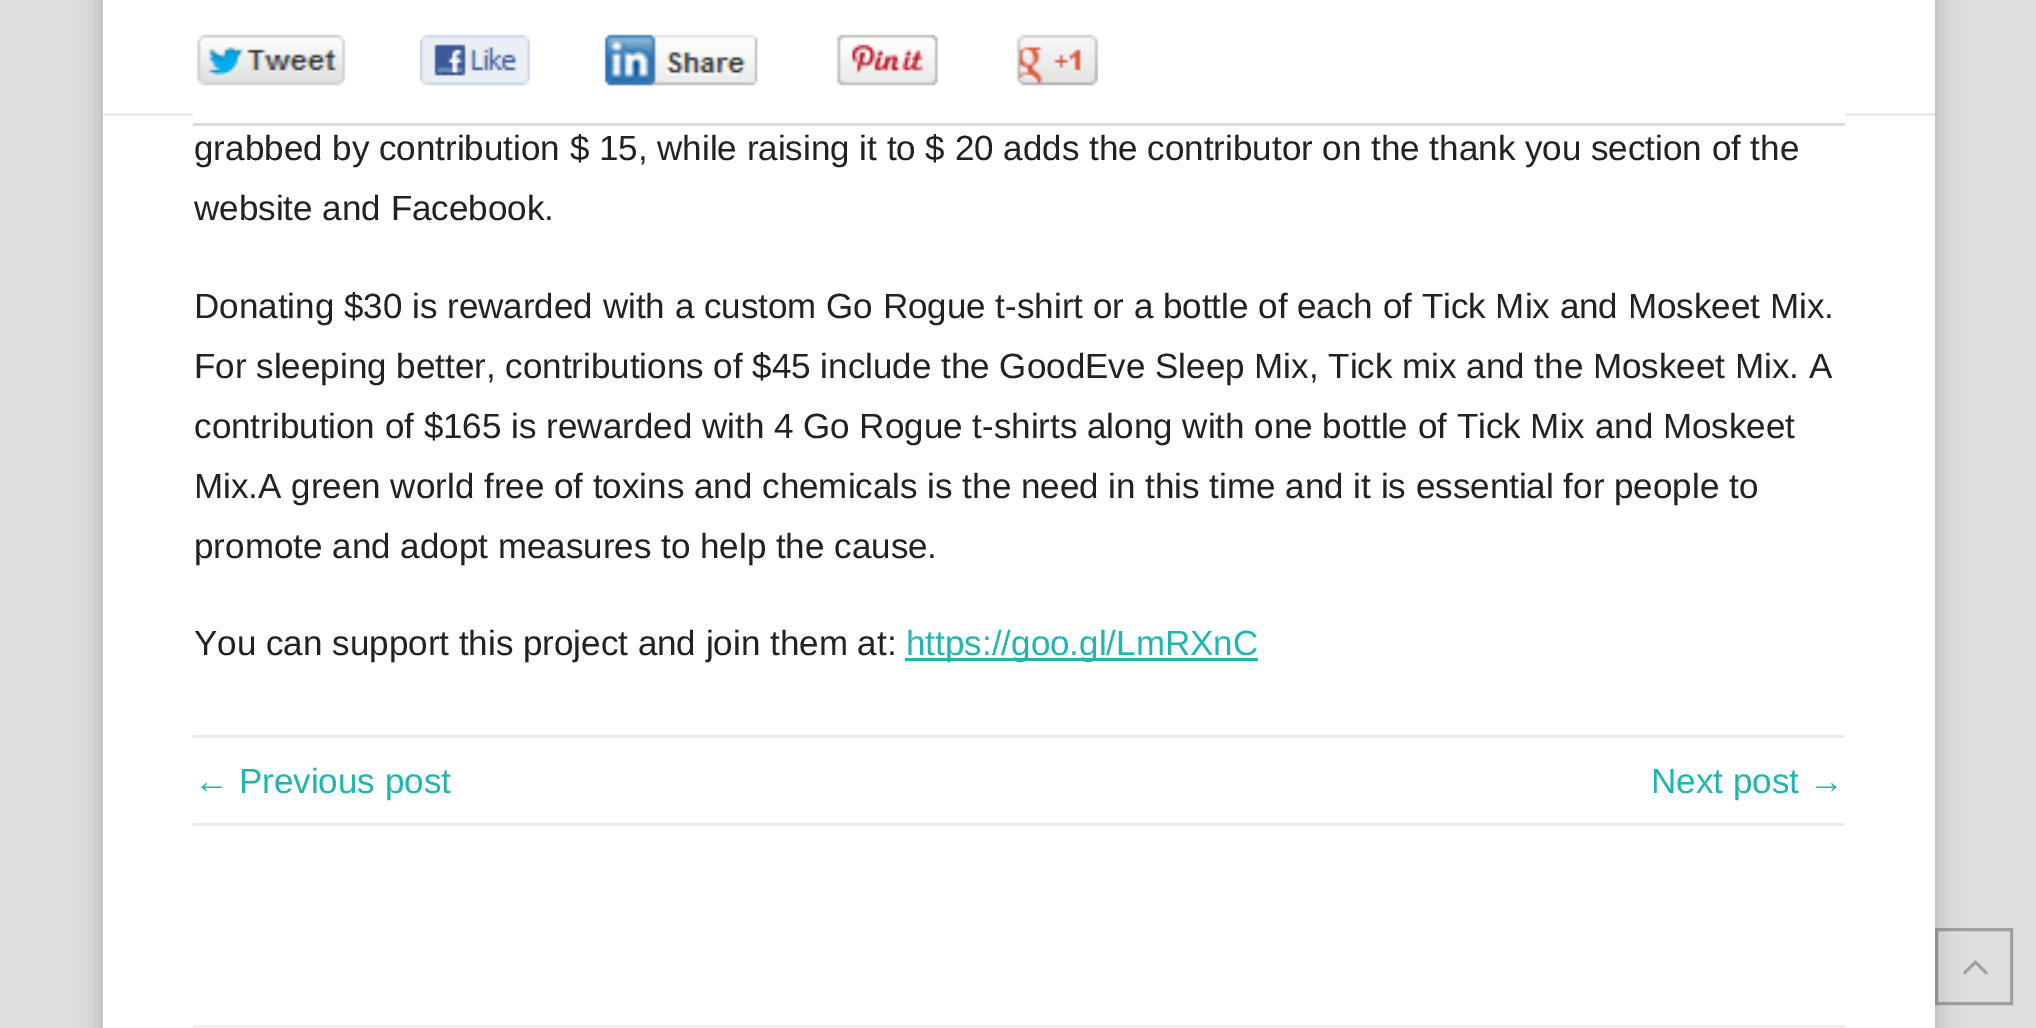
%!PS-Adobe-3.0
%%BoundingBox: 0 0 2036 1028
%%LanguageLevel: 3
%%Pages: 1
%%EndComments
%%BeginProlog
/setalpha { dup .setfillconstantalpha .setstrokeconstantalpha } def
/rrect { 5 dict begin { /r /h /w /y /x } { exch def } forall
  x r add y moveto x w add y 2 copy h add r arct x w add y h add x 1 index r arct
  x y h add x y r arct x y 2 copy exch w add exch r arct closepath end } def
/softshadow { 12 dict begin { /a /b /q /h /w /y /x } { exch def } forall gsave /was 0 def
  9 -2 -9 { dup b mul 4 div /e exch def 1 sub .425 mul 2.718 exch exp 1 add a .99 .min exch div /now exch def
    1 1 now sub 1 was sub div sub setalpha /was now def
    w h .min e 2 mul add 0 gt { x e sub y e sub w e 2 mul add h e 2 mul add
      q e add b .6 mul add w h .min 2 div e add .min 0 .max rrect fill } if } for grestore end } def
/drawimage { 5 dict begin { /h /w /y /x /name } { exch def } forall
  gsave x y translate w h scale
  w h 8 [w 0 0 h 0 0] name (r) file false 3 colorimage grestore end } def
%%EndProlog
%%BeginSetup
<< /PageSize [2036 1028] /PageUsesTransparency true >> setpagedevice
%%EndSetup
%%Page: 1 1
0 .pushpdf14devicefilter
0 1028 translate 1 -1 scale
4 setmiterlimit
0.871 setgray
0 0 2036 1028 rectfill
0.667 setgray
103 -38 1832 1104 0 12.5 1 softshadow
1 setgray
103 116 1832 912 rectfill
103 0 1832 113 rectfill
0.922 setgray
103 113 1832 3 rectfill
1 setgray
193 113 1652 3 rectfill
0.859 setgray
193 123 1652 3 rectfill
(images/1.raw) 196 34 150 52 drawimage
(images/2.raw) 420 34 110 52 drawimage
(images/3.raw) 604 34 154 52 drawimage
(images/4.raw) 836 34 103 52 drawimage
(images/5.raw) 1016 34 82 52 drawimage
0.125 0.714 0.678 setrgbcolor
905 658 353 3 rectfill
0.922 setgray
193 735 1652 3 rectfill
193 823 1652 3 rectfill
0.941 setgray
193 1025 1652 3 rectfill
0.3 setalpha
0.067 setgray
3 setlinewidth
1936.5 929.5 75 74 rectstroke
1 setalpha
(images/6.raw) 1963 960 25 15 drawimage
/LiberationSans-Regular [35 0 0 -35 0 0] selectfont
0.133 setgray
194 160 moveto (grabbed by contribution $ 15, while raising it to $ 20 adds the contributor on the thank you section of the) show
194 220 moveto (website and Facebook.) show
194 318 moveto (Donating $30 is rewarded with a custom Go Rogue t-shirt or a bottle of each of Tick Mix and Moskeet Mix.) show
194 378 moveto (For sleeping better, contributions of $45 include the GoodEve Sleep Mix, Tick mix and the Moskeet Mix. A) show
194 438 moveto (contribution of $165 is rewarded with 4 Go Rogue t-shirts along with one bottle of Tick Mix and Moskeet) show
194 498 moveto (Mix.A green world free of toxins and chemicals is the need in this time and it is essential for people to) show
194 558 moveto (promote and adopt measures to help the cause.) show
194 655 moveto (You can support this project and join them at:) show
0.125 0.714 0.678 setrgbcolor
906 655 moveto (https://goo.gl/LmRXnC) show
194 793 moveto (← Previous post) show
1651 793 moveto (Next post →) show
.poppdf14devicefilter showpage
%%EOF
